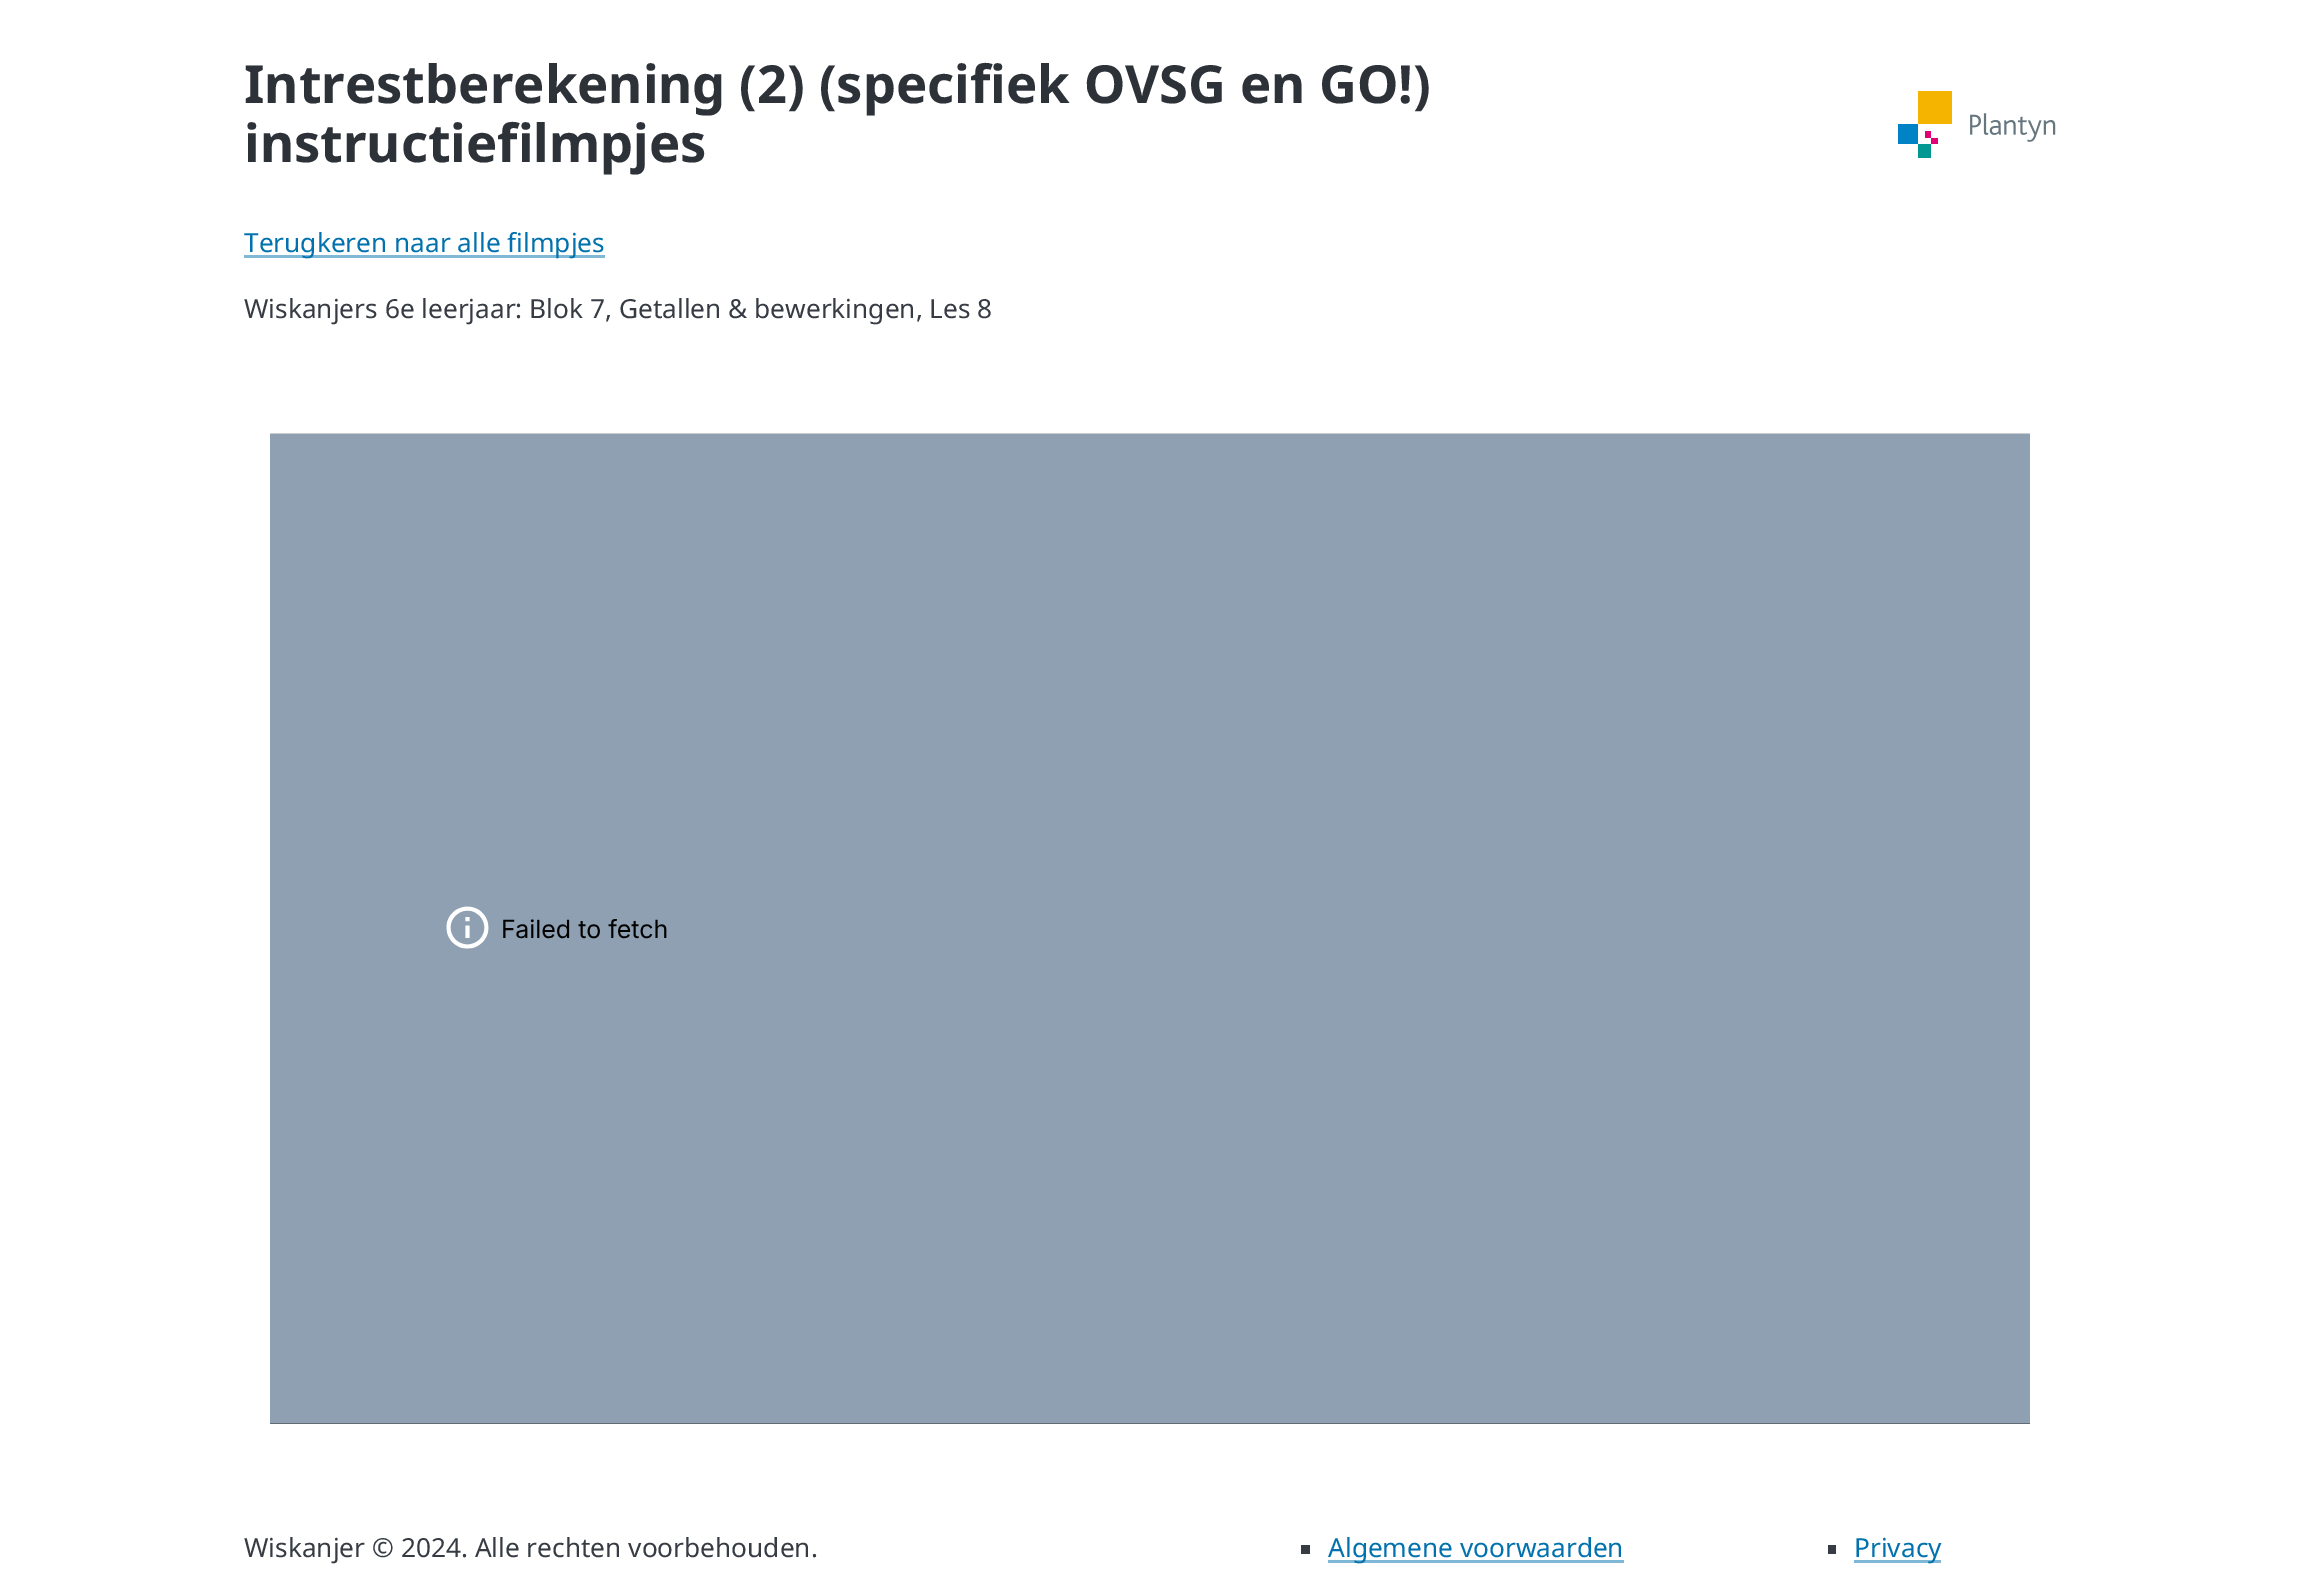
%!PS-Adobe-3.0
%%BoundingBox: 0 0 2300 1575
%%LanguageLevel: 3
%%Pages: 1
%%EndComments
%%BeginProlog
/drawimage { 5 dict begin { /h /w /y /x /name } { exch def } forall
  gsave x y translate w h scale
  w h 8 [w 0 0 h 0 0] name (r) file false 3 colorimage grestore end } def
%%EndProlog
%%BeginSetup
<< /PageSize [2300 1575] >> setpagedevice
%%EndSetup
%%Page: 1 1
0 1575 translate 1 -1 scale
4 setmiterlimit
1 setgray
0 0 2300 1575 rectfill
(images/1.raw) 1898 91 158 67 drawimage
0.502 0.722 0.839 setrgbcolor
244 255 361 3 rectfill
(images/2.raw) 270 433 1760 991 drawimage
0.216 0.235 0.267 setrgbcolor
1301 1545 9 9 rectfill
0.498 0.722 0.839 setrgbcolor
1328 1560 296 3 rectfill
0.216 0.235 0.267 setrgbcolor
1828 1545 8 9 rectfill
0.498 0.722 0.839 setrgbcolor
1854 1560 87 3 rectfill
/NotoSans-Bold [52.5 0 0 -52.5 0 0] selectfont
0.176 0.192 0.22 setrgbcolor
244 103 moveto (Intrestberekening \(2\) \(specifiek OVSG en GO!\)) show
244 162 moveto (instructiefilmpjes) show
/NotoSans-Regular [26.25 0 0 -26.25 0 0] selectfont
0.004 0.447 0.678 setrgbcolor
244 252 moveto (Terugkeren naar alle filmpjes) show
0.216 0.235 0.267 setrgbcolor
244 318 moveto (Wiskanjers 6e leerjaar: Blok 7, Getallen & bewerkingen, Les 8) show
244 1557 moveto (Wiskanjer © 2024. Alle rechten voorbehouden.) show
0.004 0.447 0.678 setrgbcolor
1328 1557 moveto (Algemene voorwaarden) show
1854 1557 moveto (Privacy) show
showpage
%%EOF
